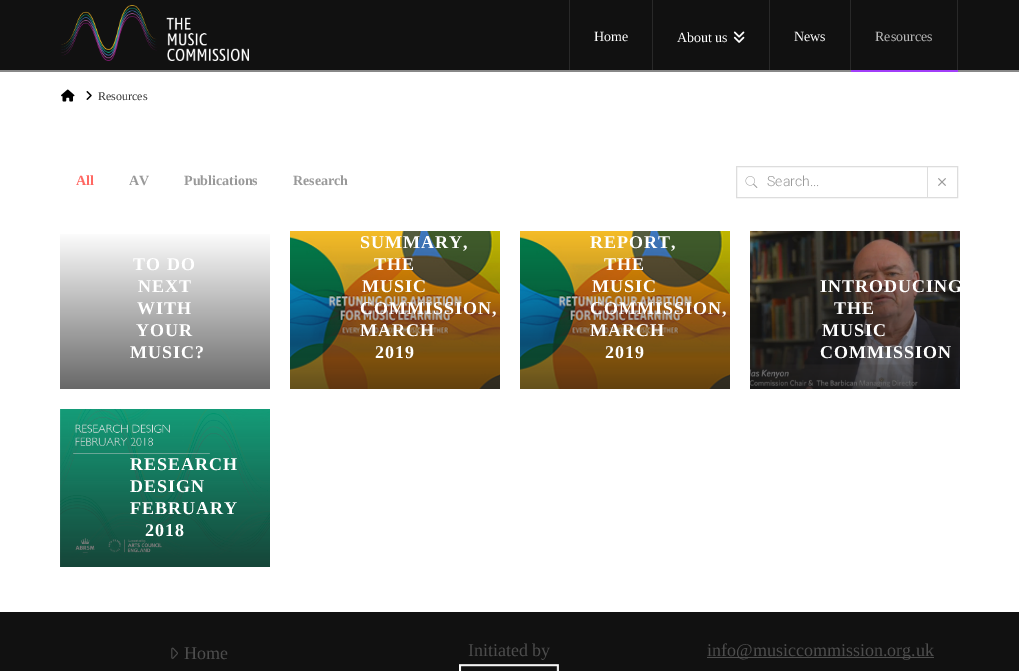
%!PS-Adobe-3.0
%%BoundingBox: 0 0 1019 671
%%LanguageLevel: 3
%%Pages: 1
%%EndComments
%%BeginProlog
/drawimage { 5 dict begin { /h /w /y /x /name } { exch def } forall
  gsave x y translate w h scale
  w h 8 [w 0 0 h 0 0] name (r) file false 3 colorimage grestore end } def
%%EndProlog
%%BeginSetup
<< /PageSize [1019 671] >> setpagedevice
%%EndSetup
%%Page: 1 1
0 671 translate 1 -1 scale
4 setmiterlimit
1 setgray
0 0 1019 671 rectfill
0.067 setgray
0 0 1019 70 rectfill
0.533 setgray
0 70 1019 2 rectfill
(images/1.raw) 61 5 188 56 drawimage
0.161 setgray
652 0 1 70 rectfill
569 0 1 70 rectfill
769 0 1 70 rectfill
(images/2.raw) 733 31 12 12 drawimage
850 0 1 70 rectfill
0.635 0.243 0.976 setrgbcolor
851 70 107 2 rectfill
0.161 setgray
957 0 1 70 rectfill
(images/3.raw) 61 89 14 13 drawimage
(images/4.raw) 86 91 6 9 drawimage
0.867 setgray
736.5 166.5 221 31 rectstroke
(images/5.raw) 745 176 13 12 drawimage
927 167 1 30 rectfill
(images/6.raw) 938 178 8 8 drawimage
gsave newpath 60 234 moveto 270 234 lineto 270 389 lineto 60 389 lineto closepath clip newpath
<< /ShadingType 2 /ColorSpace /DeviceRGB /Coords [165 231 165 389] /Extend [true true] /Function << /FunctionType 2 /Domain [0 1] /C0 [1 1 1] /C1 [0.408 0.408 0.408] /N 1 >> >> shfill grestore
(images/7.raw) 290 231 210 158 drawimage
(images/8.raw) 520 231 210 158 drawimage
(images/9.raw) 750 231 210 158 drawimage
(images/10.raw) 60 409 210 158 drawimage
0.067 setgray
0 612 1019 59 rectfill
(images/11.raw) 171 647 7 12 drawimage
(images/12.raw) 459 664 100 7 drawimage
0.302 setgray
707 657 227 1 rectfill
/LiberationSerif-Regular [14 0 0 -14 0 0] selectfont
1 setgray
594 41 moveto (Home) show
677 42 moveto (About us) show
794 41 moveto (News) show
0.722 setgray
875 41 moveto (Resources) show
/LiberationSerif-Regular [12 0 0 -12 0 0] selectfont
0.2 setgray
98 100 moveto (Resources) show
/LiberationSerif-Bold [14 0 0 -14 0 0] selectfont
1 0.408 0.388 setrgbcolor
76 185 moveto (All) show
0.6 setgray
129 185 moveto (AV) show
184 185 moveto (Publications) show
293 185 moveto (Research) show
/Roboto-Light [14 0 0 -14 0 0] selectfont
767 186 moveto (Search...) show
/LiberationSerif-Bold [18 0 0 -18 0 0] selectfont
1 setgray
133 270 moveto 1 0 (TO DO) ashow
138 292 moveto 1 0 (NEXT) ashow
137 314 moveto 1 0 (WITH) ashow
136 336 moveto 1 0 (YOUR) ashow
130 358 moveto 1 0 (MUSIC?) ashow
360 248 moveto 1 0 (SUMMARY,) ashow
374 270 moveto 1 0 (THE) ashow
362 292 moveto 1 0 (MUSIC) ashow
360 314 moveto 1 0 (COMMISSION,) ashow
360 336 moveto 1 0 (MARCH) ashow
375 358 moveto 1 0 (2019) ashow
590 248 moveto 1 0 (REPORT,) ashow
604 270 moveto 1 0 (THE) ashow
592 292 moveto 1 0 (MUSIC) ashow
590 314 moveto 1 0 (COMMISSION,) ashow
590 336 moveto 1 0 (MARCH) ashow
605 358 moveto 1 0 (2019) ashow
820 292 moveto 1 0 (INTRODUCING) ashow
834 314 moveto 1 0 (THE) ashow
822 336 moveto 1 0 (MUSIC) ashow
820 358 moveto 1 0 (COMMISSION) ashow
130 470 moveto 1 0 (RESEARCH) ashow
130 492 moveto 1 0 (DESIGN) ashow
130 514 moveto 1 0 (FEBRUARY) ashow
145 536 moveto 1 0 (2018) ashow
/LiberationSerif-Regular [18 0 0 -18 0 0] selectfont
0.302 setgray
184 659 moveto (Home) show
468 656 moveto (Initiated by) show
707 656 moveto (info@musiccommission.org.uk) show
showpage
%%EOF
